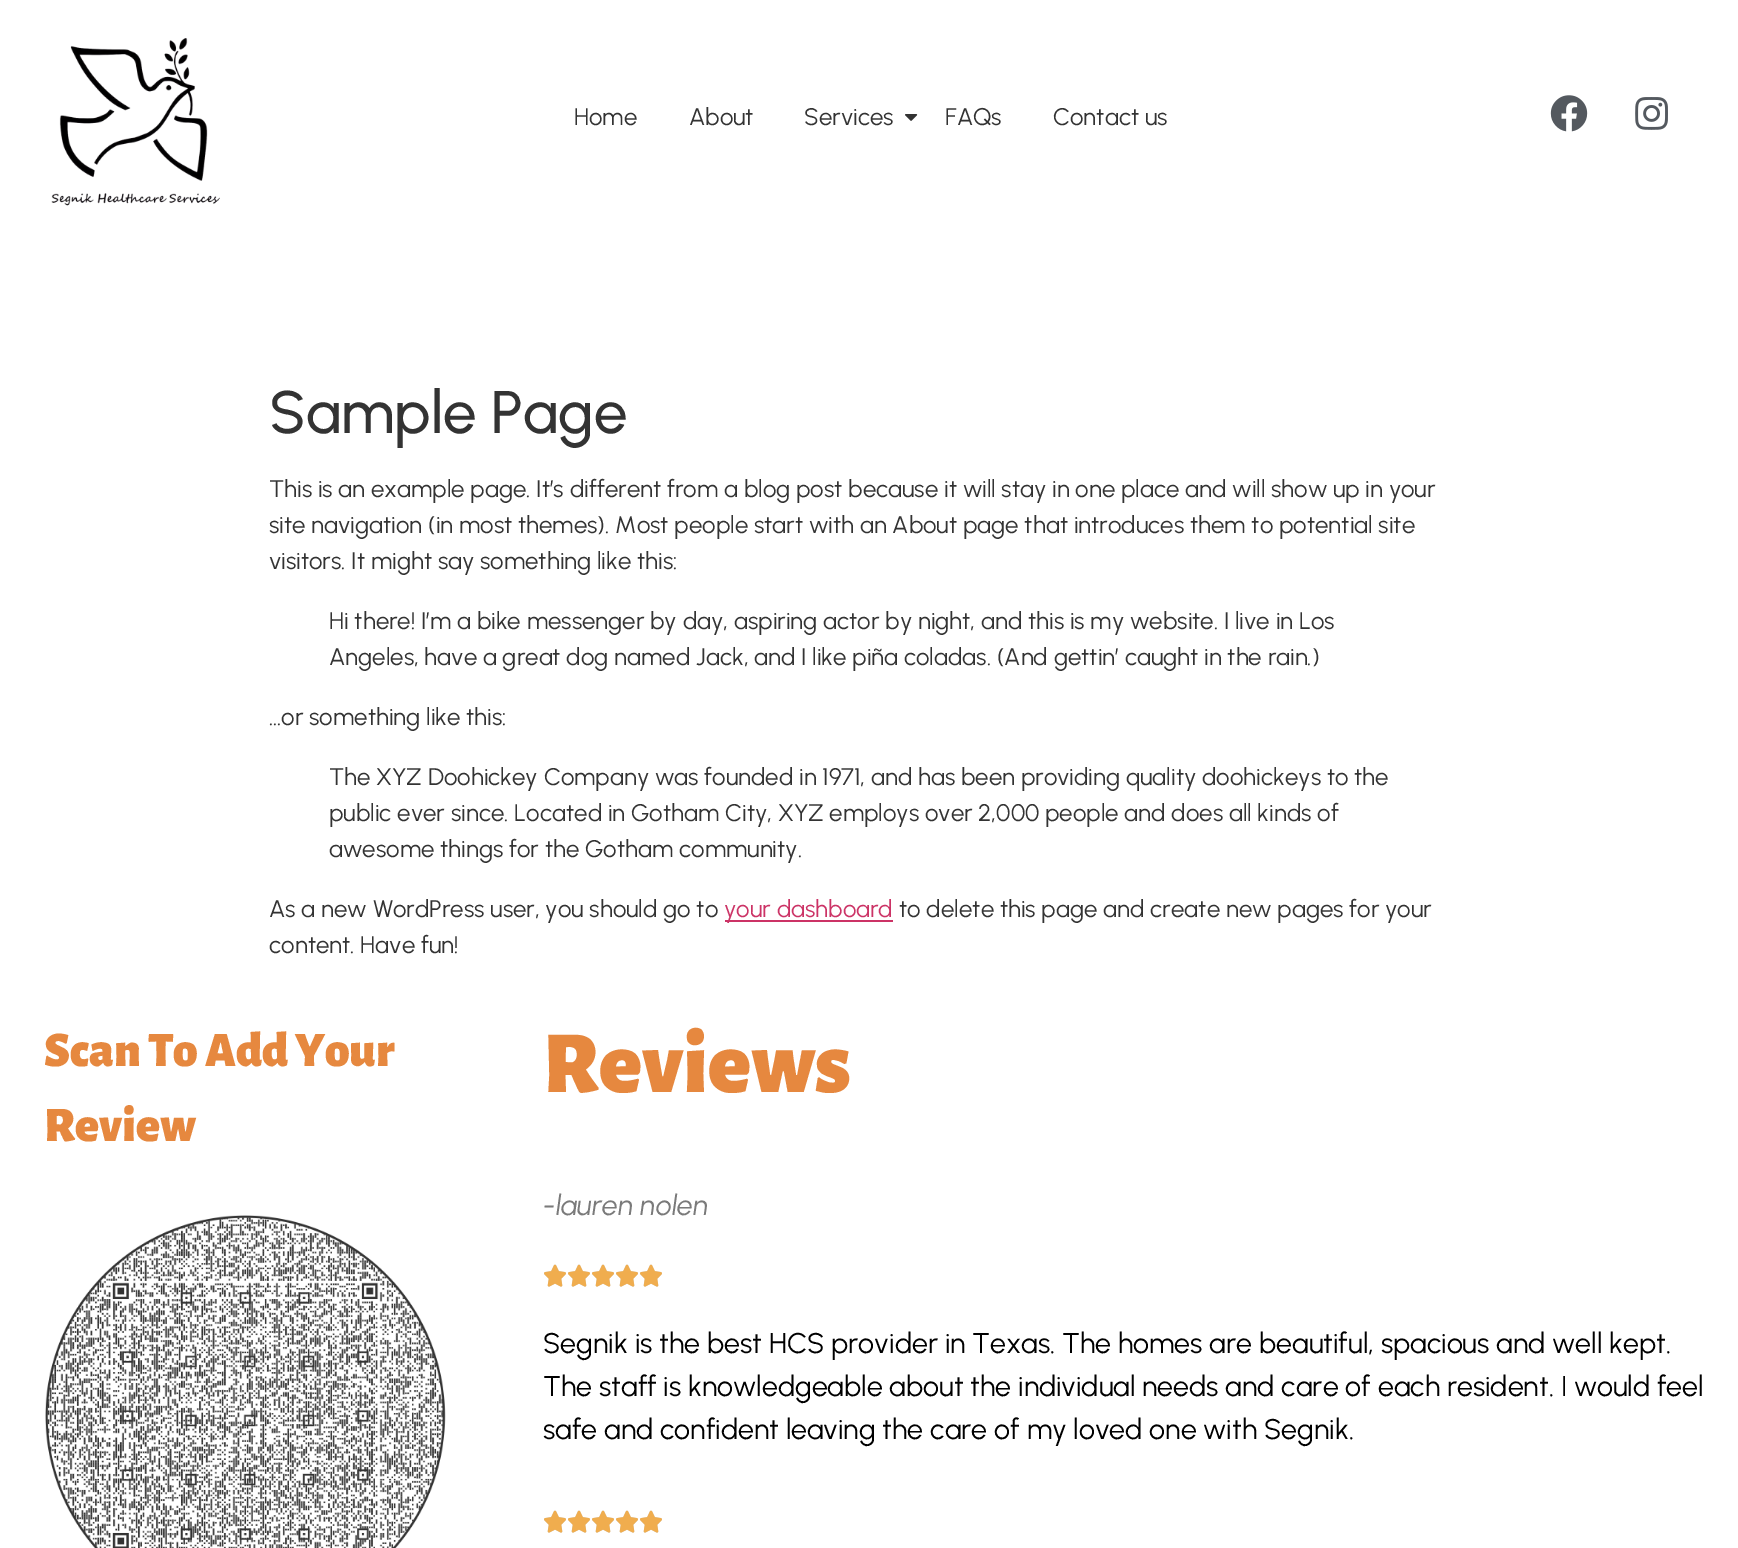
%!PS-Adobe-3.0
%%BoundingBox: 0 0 1738 1548
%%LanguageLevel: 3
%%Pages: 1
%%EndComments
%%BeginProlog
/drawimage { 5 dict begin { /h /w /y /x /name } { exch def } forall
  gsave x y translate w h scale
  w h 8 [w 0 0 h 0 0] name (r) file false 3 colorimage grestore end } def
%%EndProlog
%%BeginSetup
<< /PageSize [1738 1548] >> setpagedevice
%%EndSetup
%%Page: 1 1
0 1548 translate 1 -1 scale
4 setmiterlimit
1 setgray
0 0 1738 1548 rectfill
(images/1.raw) 51 38 169 168 drawimage
(images/2.raw) 905 114 13 7 drawimage
(images/3.raw) 1550 95 38 37 drawimage
(images/4.raw) 1635 97 33 33 drawimage
0.8 0.2 0.4 setrgbcolor
725 920 168 2 rectfill
(images/5.raw) 45 1215 401 333 drawimage
(images/6.raw) 544 1264 22 23 drawimage
(images/7.raw) 544 1264 22 23 drawimage
(images/6.raw) 568 1264 22 23 drawimage
(images/7.raw) 568 1264 22 23 drawimage
(images/6.raw) 592 1264 22 23 drawimage
(images/7.raw) 592 1264 22 23 drawimage
(images/6.raw) 616 1264 22 23 drawimage
(images/7.raw) 616 1264 22 23 drawimage
(images/6.raw) 640 1264 22 23 drawimage
(images/7.raw) 640 1264 22 23 drawimage
(images/6.raw) 544 1510 22 23 drawimage
(images/7.raw) 544 1510 22 23 drawimage
(images/6.raw) 568 1510 22 23 drawimage
(images/7.raw) 568 1510 22 23 drawimage
(images/6.raw) 592 1510 22 23 drawimage
(images/7.raw) 592 1510 22 23 drawimage
(images/6.raw) 616 1510 22 23 drawimage
(images/7.raw) 616 1510 22 23 drawimage
(images/6.raw) 640 1510 22 23 drawimage
(images/7.raw) 640 1510 22 23 drawimage
/Urbanist-Regular [24 0 0 -24 0 0] selectfont
0.2 setgray
574 125 moveto (Home) show
689 125 moveto (About) show
804 125 moveto (Services) show
945 125 moveto (FAQs) show
1053 125 moveto (Contact us) show
/Urbanist-Medium [60 0 0 -60 0 0] selectfont
269 433 moveto (Sample Page) show
/Urbanist-Regular [24 0 0 -24 0 0] selectfont
269 497 moveto (This is an example page. It’s different from a blog post because it will stay in one place and will show up in your) show
269 533 moveto (site navigation \(in most themes\). Most people start with an About page that introduces them to potential site) show
269 569 moveto (visitors. It might say something like this:) show
329 629 moveto (Hi there! I’m a bike messenger by day, aspiring actor by night, and this is my website. I live in Los) show
329 665 moveto (Angeles, have a great dog named Jack, and I like piña coladas. \(And gettin’ caught in the rain.\)) show
269 725 moveto (…or something like this:) show
329 785 moveto (The XYZ Doohickey Company was founded in 1971, and has been providing quality doohickeys to the) show
329 821 moveto (public ever since. Located in Gotham City, XYZ employs over 2,000 people and does all kinds of) show
329 857 moveto (awesome things for the Gotham community.) show
269 917 moveto (As a new WordPress user, you should go to) show
0.8 0.2 0.4 setrgbcolor
724 917 moveto (your dashboard) show
0.2 setgray
899 917 moveto (to delete this page and create new pages for your) show
269 953 moveto (content. Have fun!) show
/AlegreyaSans-Black [49.5 0 0 -49.5 0 0] selectfont
0.902 0.533 0.247 setrgbcolor
44 1066 moveto (Scan To Add Your) show
44 1141 moveto (Review) show
/AlegreyaSans-Black [88.5 0 0 -88.5 0 0] selectfont
543 1092 moveto (Reviews) show
/Urbanist-Italic [28.5 0 0 -28.5 0 0] selectfont
0.478 setgray
543 1215 moveto (-lauren nolen) show
/Urbanist-Regular [28.5 0 0 -28.5 0 0] selectfont
0 setgray
543 1353 moveto (Segnik is the best HCS provider in Texas. The homes are beautiful, spacious and well kept.) show
543 1396 moveto (The staff is knowledgeable about the individual needs and care of each resident. I would feel) show
543 1439 moveto (safe and confident leaving the care of my loved one with Segnik.) show
showpage
%%EOF
